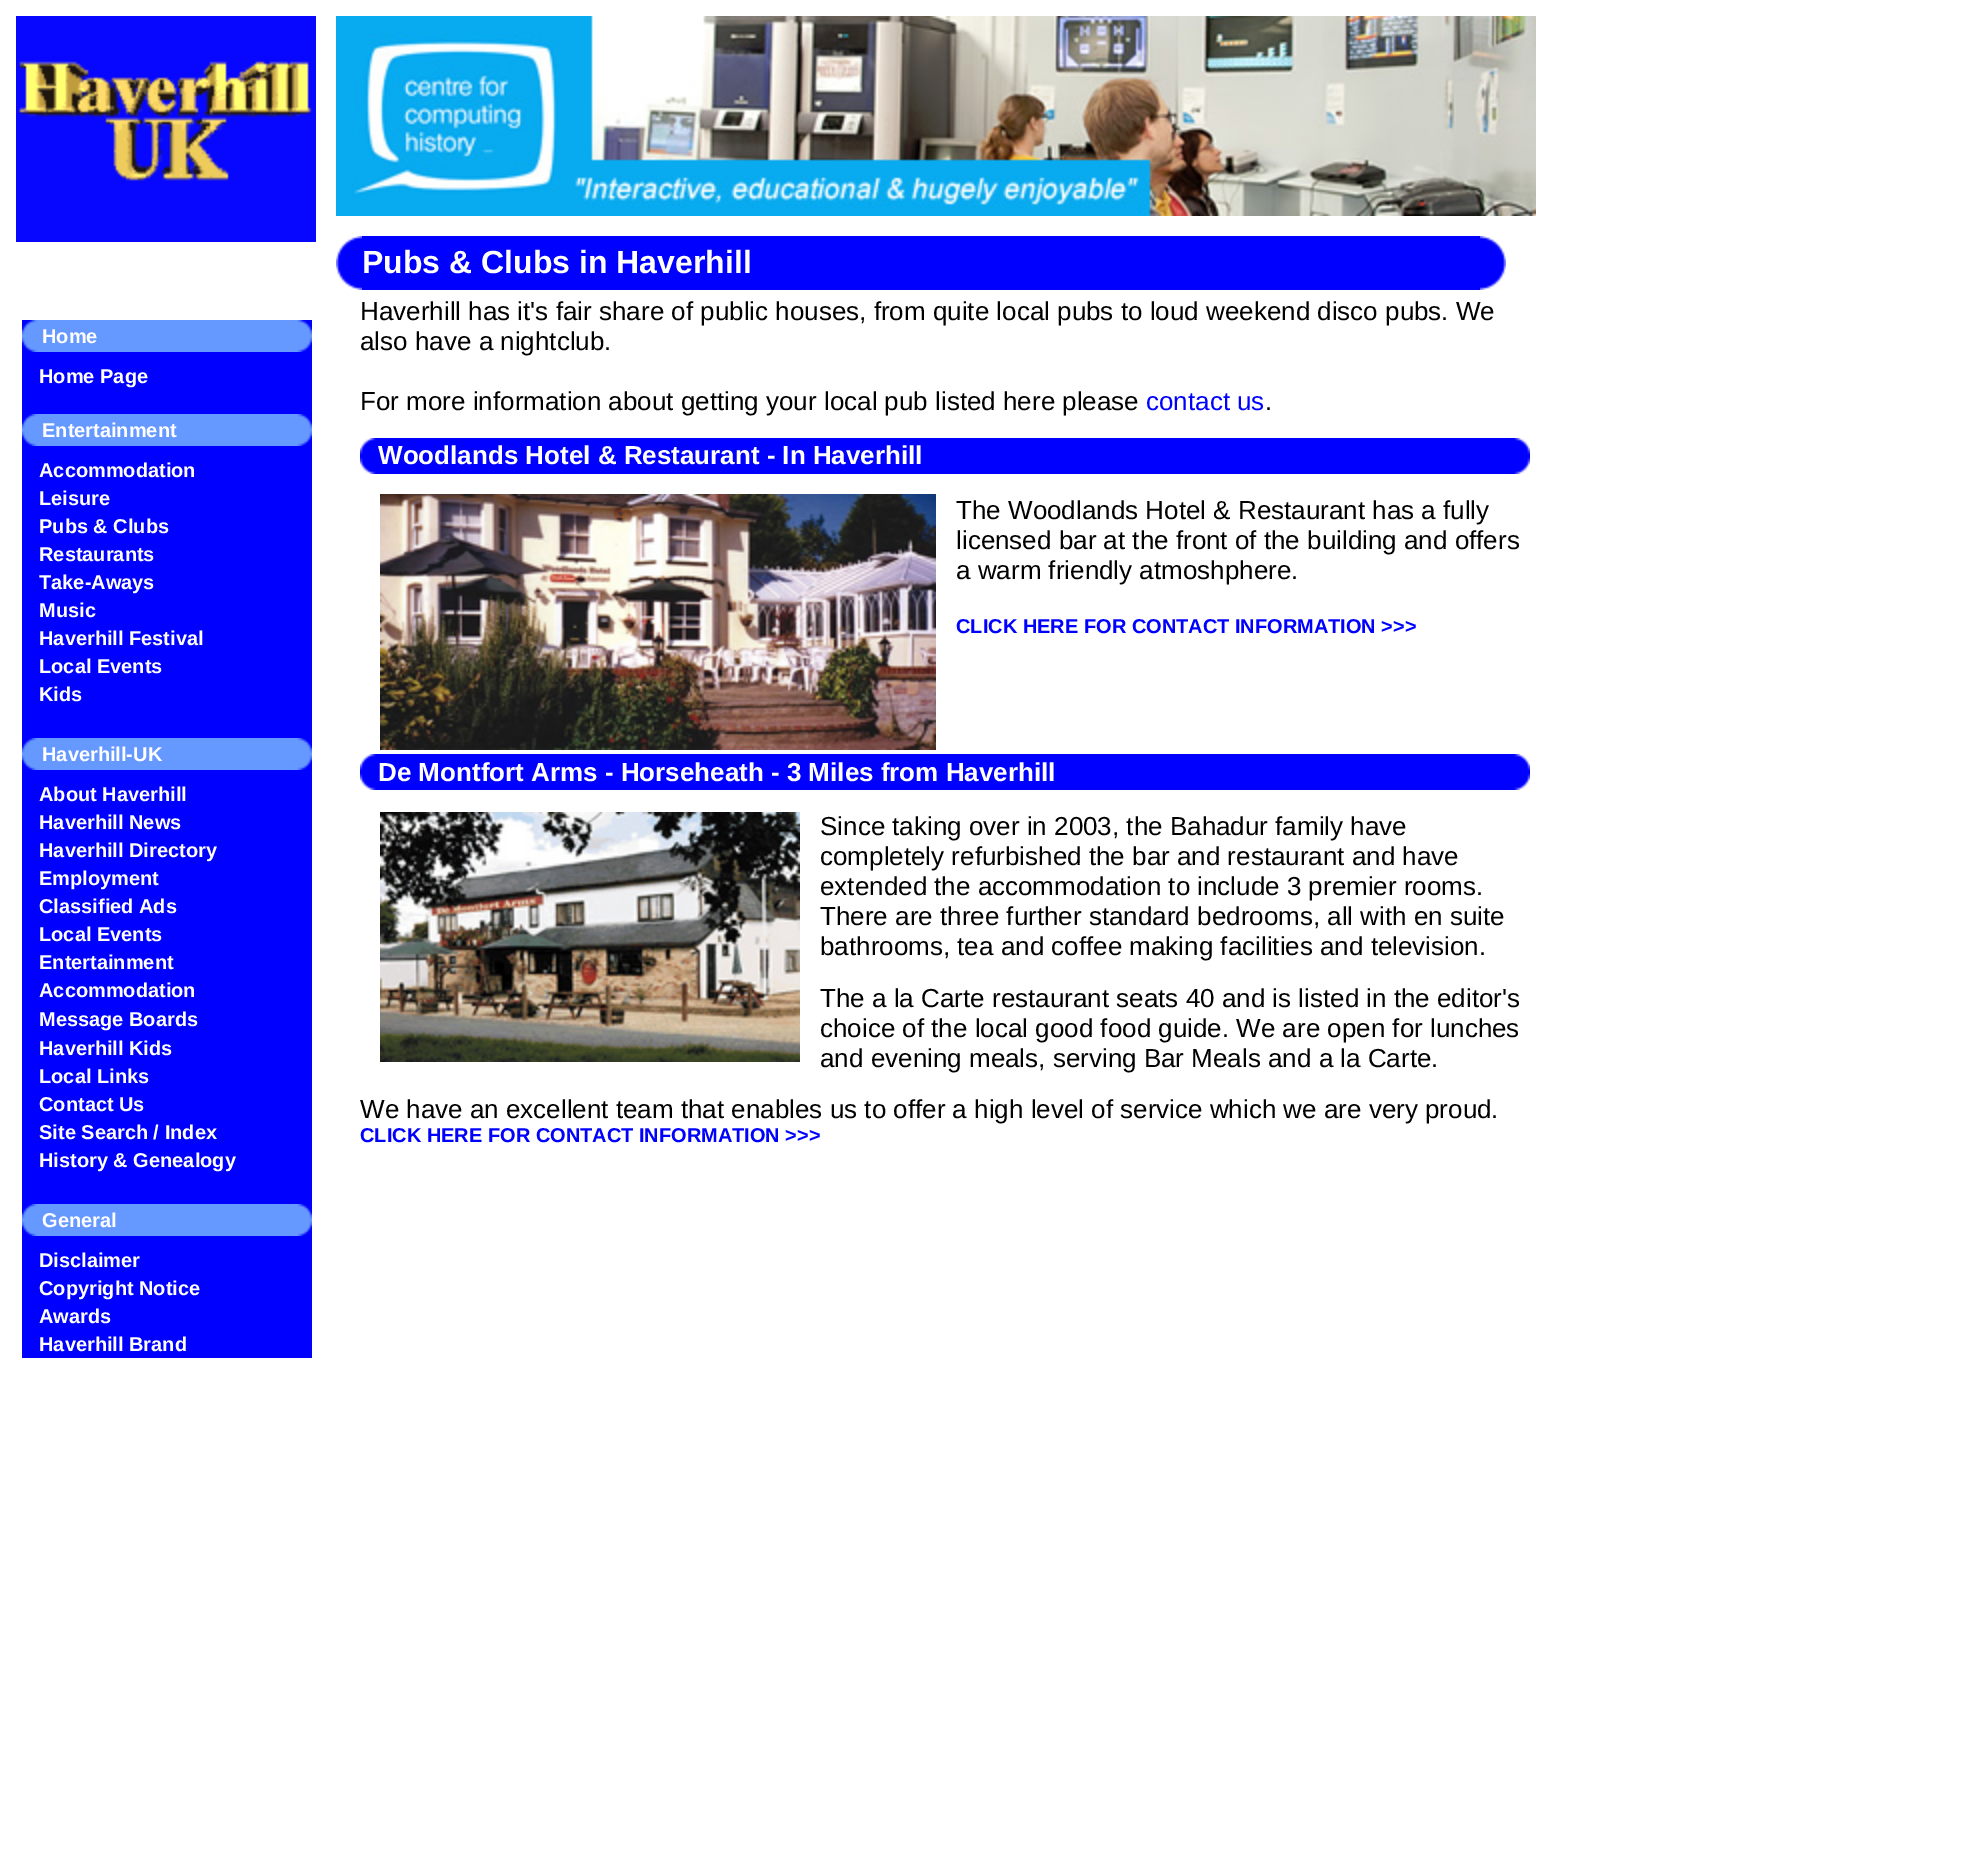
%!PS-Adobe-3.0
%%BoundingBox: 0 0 1981 1854
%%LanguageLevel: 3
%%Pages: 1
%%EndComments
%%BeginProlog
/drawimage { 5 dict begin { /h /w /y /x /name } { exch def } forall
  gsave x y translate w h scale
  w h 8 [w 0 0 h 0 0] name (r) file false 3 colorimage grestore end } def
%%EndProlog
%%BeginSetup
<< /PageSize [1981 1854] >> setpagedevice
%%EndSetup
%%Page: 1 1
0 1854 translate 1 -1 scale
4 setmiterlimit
1 setgray
0 0 1981 1854 rectfill
(images/1.raw) 16 16 300 226 drawimage
(images/2.raw) 336 16 1200 200 drawimage
0 0 1 setrgbcolor
362 236 1118 54 rectfill
(images/3.raw) 336 236 26 54 drawimage
(images/4.raw) 1480 236 26 54 drawimage
22 352 290 62 rectfill
(images/5.raw) 22 320 20 32 drawimage
0.4 0.6 1 setrgbcolor
42 320 250 32 rectfill
(images/6.raw) 292 320 20 32 drawimage
0 0 1 setrgbcolor
22 446 290 292 rectfill
(images/5.raw) 22 414 20 32 drawimage
0.4 0.6 1 setrgbcolor
42 414 250 32 rectfill
(images/6.raw) 292 414 20 32 drawimage
0 0 1 setrgbcolor
22 770 290 434 rectfill
(images/5.raw) 22 738 20 32 drawimage
0.4 0.6 1 setrgbcolor
42 738 250 32 rectfill
(images/6.raw) 292 738 20 32 drawimage
0 0 1 setrgbcolor
22 1236 290 122 rectfill
(images/5.raw) 22 1204 20 32 drawimage
0.4 0.6 1 setrgbcolor
42 1204 250 32 rectfill
(images/6.raw) 292 1204 20 32 drawimage
0 0 1 setrgbcolor
376 438 1138 36 rectfill
(images/7.raw) 360 438 16 36 drawimage
(images/8.raw) 1514 438 16 36 drawimage
(images/9.raw) 380 494 556 256 drawimage
376 754 1138 36 rectfill
(images/7.raw) 360 754 16 36 drawimage
(images/8.raw) 1514 754 16 36 drawimage
(images/10.raw) 380 812 420 250 drawimage
/LiberationSans-Bold [32 0 0 -32 0 0] selectfont
1 setgray
362 273 moveto (Pubs & Clubs in Haverhill) show
/LiberationSans-Bold [20 0 0 -20 0 0] selectfont
42 343 moveto (Home) show
39 383 moveto (Home Page) show
42 437 moveto (Entertainment) show
39 477 moveto (Accommodation) show
39 505 moveto (Leisure) show
39 533 moveto (Pubs & Clubs) show
39 561 moveto (Restaurants) show
39 589 moveto (Take-Aways) show
39 617 moveto (Music) show
39 645 moveto (Haverhill Festival) show
39 673 moveto (Local Events) show
39 701 moveto (Kids) show
42 761 moveto (Haverhill-UK) show
39 801 moveto (About Haverhill) show
39 829 moveto (Haverhill News) show
39 857 moveto (Haverhill Directory) show
39 885 moveto (Employment) show
39 913 moveto (Classified Ads) show
39 941 moveto (Local Events) show
39 969 moveto (Entertainment) show
39 997 moveto (Accommodation) show
39 1026 moveto (Message Boards) show
39 1055 moveto (Haverhill Kids) show
39 1083 moveto (Local Links) show
39 1111 moveto (Contact Us) show
39 1139 moveto (Site Search / Index) show
39 1167 moveto (History & Genealogy) show
42 1227 moveto (General) show
39 1267 moveto (Disclaimer) show
39 1295 moveto (Copyright Notice) show
39 1323 moveto (Awards) show
39 1351 moveto (Haverhill Brand) show
/LiberationSans-Regular [26 0 0 -26 0 0] selectfont
0 setgray
360 320 moveto (Haverhill has it's fair share of public houses, from quite local pubs to loud weekend disco pubs. We) show
360 350 moveto (also have a nightclub.) show
360 410 moveto (For more information about getting your local pub listed here please) show
0 0 1 setrgbcolor
1146 410 moveto (contact us) show
0 setgray
1265 410 moveto (.) show
/LiberationSans-Bold [26 0 0 -26 0 0] selectfont
1 setgray
378 464 moveto (Woodlands Hotel & Restaurant - In Haverhill) show
/LiberationSans-Regular [26 0 0 -26 0 0] selectfont
0 setgray
956 519 moveto (The Woodlands Hotel & Restaurant has a fully) show
956 549 moveto (licensed bar at the front of the building and offers) show
956 579 moveto (a warm friendly atmoshphere.) show
/LiberationSans-Bold [20 0 0 -20 0 0] selectfont
0 0 1 setrgbcolor
956 633 moveto (CLICK HERE FOR CONTACT INFORMATION >>>) show
/LiberationSans-Bold [26 0 0 -26 0 0] selectfont
1 setgray
378 781 moveto (De Montfort Arms - Horseheath - 3 Miles from Haverhill) show
/LiberationSans-Regular [26 0 0 -26 0 0] selectfont
0 setgray
820 835 moveto (Since taking over in 2003, the Bahadur family have) show
820 865 moveto (completely refurbished the bar and restaurant and have) show
820 895 moveto (extended the accommodation to include 3 premier rooms.) show
820 925 moveto (There are three further standard bedrooms, all with en suite) show
820 955 moveto (bathrooms, tea and coffee making facilities and television.) show
820 1007 moveto (The a la Carte restaurant seats 40 and is listed in the editor's) show
820 1037 moveto (choice of the local good food guide. We are open for lunches) show
820 1067 moveto (and evening meals, serving Bar Meals and a la Carte.) show
360 1118 moveto (We have an excellent team that enables us to offer a high level of service which we are very proud.) show
/LiberationSans-Bold [20 0 0 -20 0 0] selectfont
0 0 1 setrgbcolor
360 1142 moveto (CLICK HERE FOR CONTACT INFORMATION >>>) show
showpage
%%EOF
